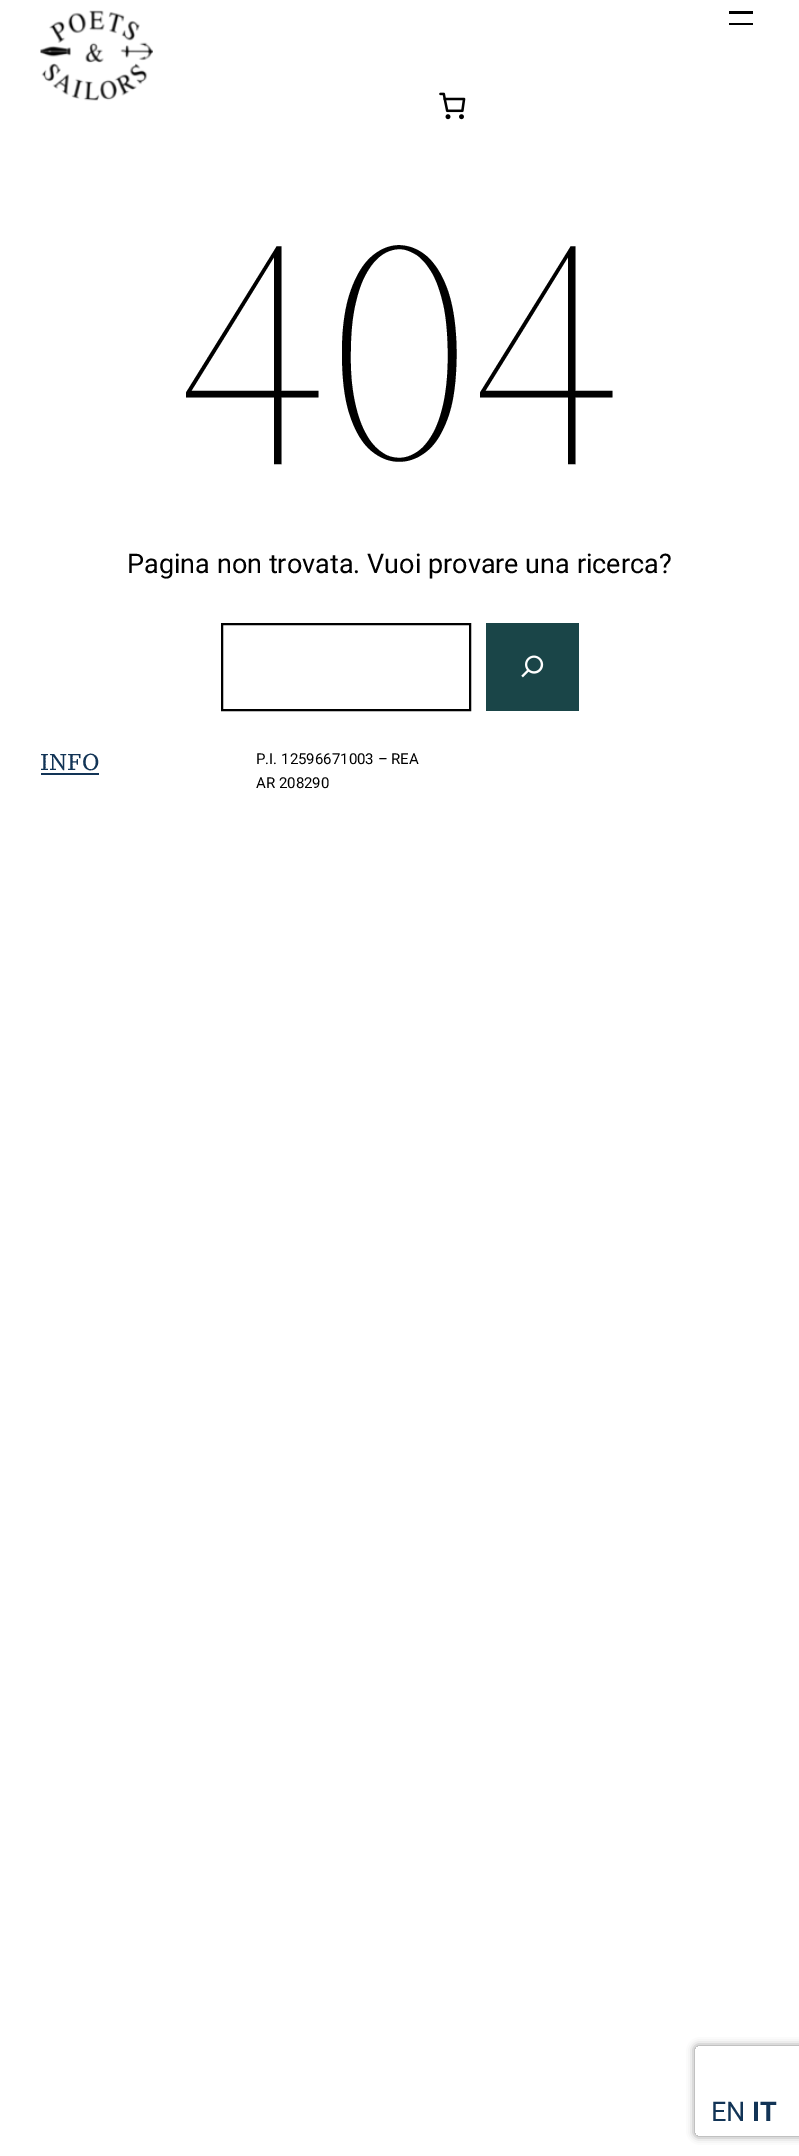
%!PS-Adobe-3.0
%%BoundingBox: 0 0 799 2156
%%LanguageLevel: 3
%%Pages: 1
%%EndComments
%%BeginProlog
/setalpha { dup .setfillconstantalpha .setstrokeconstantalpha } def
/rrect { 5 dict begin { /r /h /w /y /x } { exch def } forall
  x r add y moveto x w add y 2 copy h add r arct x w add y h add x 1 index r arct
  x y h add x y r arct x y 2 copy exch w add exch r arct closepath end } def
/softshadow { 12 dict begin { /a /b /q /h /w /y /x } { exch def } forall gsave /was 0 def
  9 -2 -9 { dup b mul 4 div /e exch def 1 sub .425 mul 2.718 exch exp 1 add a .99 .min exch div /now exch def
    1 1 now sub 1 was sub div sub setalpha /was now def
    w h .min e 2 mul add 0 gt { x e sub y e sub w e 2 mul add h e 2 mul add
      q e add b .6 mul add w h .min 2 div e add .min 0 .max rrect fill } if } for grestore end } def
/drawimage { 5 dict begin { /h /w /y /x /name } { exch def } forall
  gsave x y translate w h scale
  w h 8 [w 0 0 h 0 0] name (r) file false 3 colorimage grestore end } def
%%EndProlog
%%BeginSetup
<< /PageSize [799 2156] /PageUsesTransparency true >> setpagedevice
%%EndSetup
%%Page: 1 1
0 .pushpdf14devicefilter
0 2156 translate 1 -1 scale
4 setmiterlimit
1 setgray
0 0 799 2156 rectfill
(images/1.raw) 40 10 113 91 drawimage
0 setgray
729 11 24 3 rectfill
729 23 24 2 rectfill
(images/2.raw) 439 92 27 28 drawimage
2 setlinewidth
222 624 248 86 rectstroke
0.102 0.271 0.282 setrgbcolor
486 623 93 88 rectfill
(images/3.raw) 521 655 23 23 drawimage
0.071 0.204 0.337 setrgbcolor
41 773 58 2 rectfill
gsave
newpath 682 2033 moveto 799 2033 lineto 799 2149 lineto 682 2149 lineto closepath 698 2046 moveto 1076 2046 lineto 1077.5 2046 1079 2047.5 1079 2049 curveto 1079 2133 lineto 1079 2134.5 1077.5 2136 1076 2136 curveto 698 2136 lineto 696.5 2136 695 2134.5 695 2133 curveto 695 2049 lineto 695 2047.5 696.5 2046 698 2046 curveto closepath eoclip newpath
0.502 setgray
695 2046 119 90 3 4 1 softshadow
grestore
/SourceSerif4-ExtraLight [320 0 0 -320 0 0] selectfont
0 setgray
179 458 moveto (404) show
/Roboto-Regular [27 0 0 -27 0 0] selectfont
127 573 moveto (Pagina non trovata. Vuoi provare una ricerca?) show
/SourceSerif4-Regular [24 0 0 -24 0 0] selectfont
0.071 0.204 0.337 setrgbcolor
40 770 moveto (INFO) show
/Roboto-Regular [15 0 0 -15 0 0] selectfont
0 setgray
256 764 moveto (P.I. 12596671003 – REA) show
256 788 moveto (AR 208290) show
/Roboto-Regular [27 0 0 -27 0 0] selectfont
0.071 0.204 0.337 setrgbcolor
711 2121 moveto (EN) show
/Roboto-Bold [27 0 0 -27 0 0] selectfont
752 2121 moveto (IT) show
.poppdf14devicefilter showpage
%%EOF
